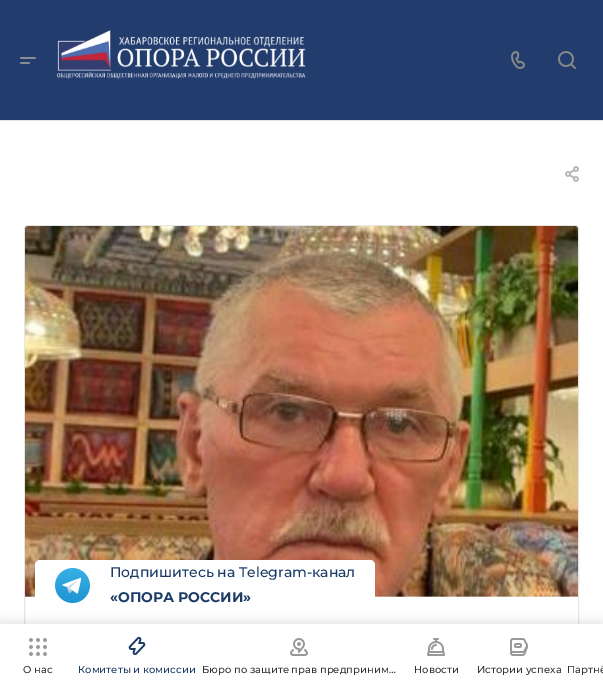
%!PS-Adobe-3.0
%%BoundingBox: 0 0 603 680
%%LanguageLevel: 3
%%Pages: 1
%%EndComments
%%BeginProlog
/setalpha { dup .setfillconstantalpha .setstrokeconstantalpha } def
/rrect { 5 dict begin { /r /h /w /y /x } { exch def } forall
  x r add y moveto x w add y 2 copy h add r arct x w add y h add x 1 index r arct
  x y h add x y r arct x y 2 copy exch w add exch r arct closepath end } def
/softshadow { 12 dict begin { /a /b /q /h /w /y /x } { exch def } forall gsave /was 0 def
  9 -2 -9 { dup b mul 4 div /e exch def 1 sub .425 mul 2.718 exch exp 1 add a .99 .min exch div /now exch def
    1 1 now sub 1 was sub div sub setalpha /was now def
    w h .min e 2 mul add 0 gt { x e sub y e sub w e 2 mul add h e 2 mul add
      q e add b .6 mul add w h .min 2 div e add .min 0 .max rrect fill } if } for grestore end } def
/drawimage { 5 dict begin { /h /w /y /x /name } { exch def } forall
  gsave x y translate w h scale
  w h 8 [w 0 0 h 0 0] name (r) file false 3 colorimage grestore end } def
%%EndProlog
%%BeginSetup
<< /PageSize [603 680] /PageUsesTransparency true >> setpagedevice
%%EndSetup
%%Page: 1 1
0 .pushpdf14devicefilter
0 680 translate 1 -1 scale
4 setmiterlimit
1 setgray
0 0 603 680 rectfill
0.898 setgray
0 120 603 1 rectfill
0.129 0.235 0.427 setrgbcolor
0 0 603 120 rectfill
(images/1.raw) 20 57 16 7 drawimage
(images/2.raw) 57 29 249 50 drawimage
(images/3.raw) 511 51 14 18 drawimage
(images/4.raw) 558 51 18 18 drawimage
(images/5.raw) 565 166 14 16 drawimage
0.898 setgray
24.5 225.5 554 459 3.5 rrect stroke
(images/6.raw) 25 226 553 371 drawimage
0 setgray
0 621 603 56 0 5 0.1 softshadow
1 setgray
35 560 340 50 5 rrect fill
(images/7.raw) 55 568 35 35 drawimage
0 624 603 56 rectfill
(images/8.raw) 29 638 18 18 drawimage
(images/9.raw) 128 636 18 20 drawimage
(images/10.raw) 290 638 18 18 drawimage
(images/11.raw) 427 638 18 18 drawimage
(images/12.raw) 510 638 18 18 drawimage
/Montserrat-Medium [14 0 0 -14 0 0] selectfont
0.11 0.235 0.408 setrgbcolor
110 577 moveto (Подпишитесь на Telegram-канал) show
/Montserrat-Bold [14 0 0 -14 0 0] selectfont
110 602 moveto («ОПОРА РОССИИ») show
/Montserrat-Medium [10 0 0 -10 0 0] selectfont
0.2 setgray
23 673 moveto (О нас) show
0.11 0.235 0.408 setrgbcolor
78 673 moveto (Комитеты и комиссии) show
0.2 setgray
202 673 moveto (Бюро по защите прав предприним…) show
414 673 moveto (Новости) show
477 673 moveto (Истории успеха) show
567 673 moveto (Партнё) show
.poppdf14devicefilter showpage
%%EOF
